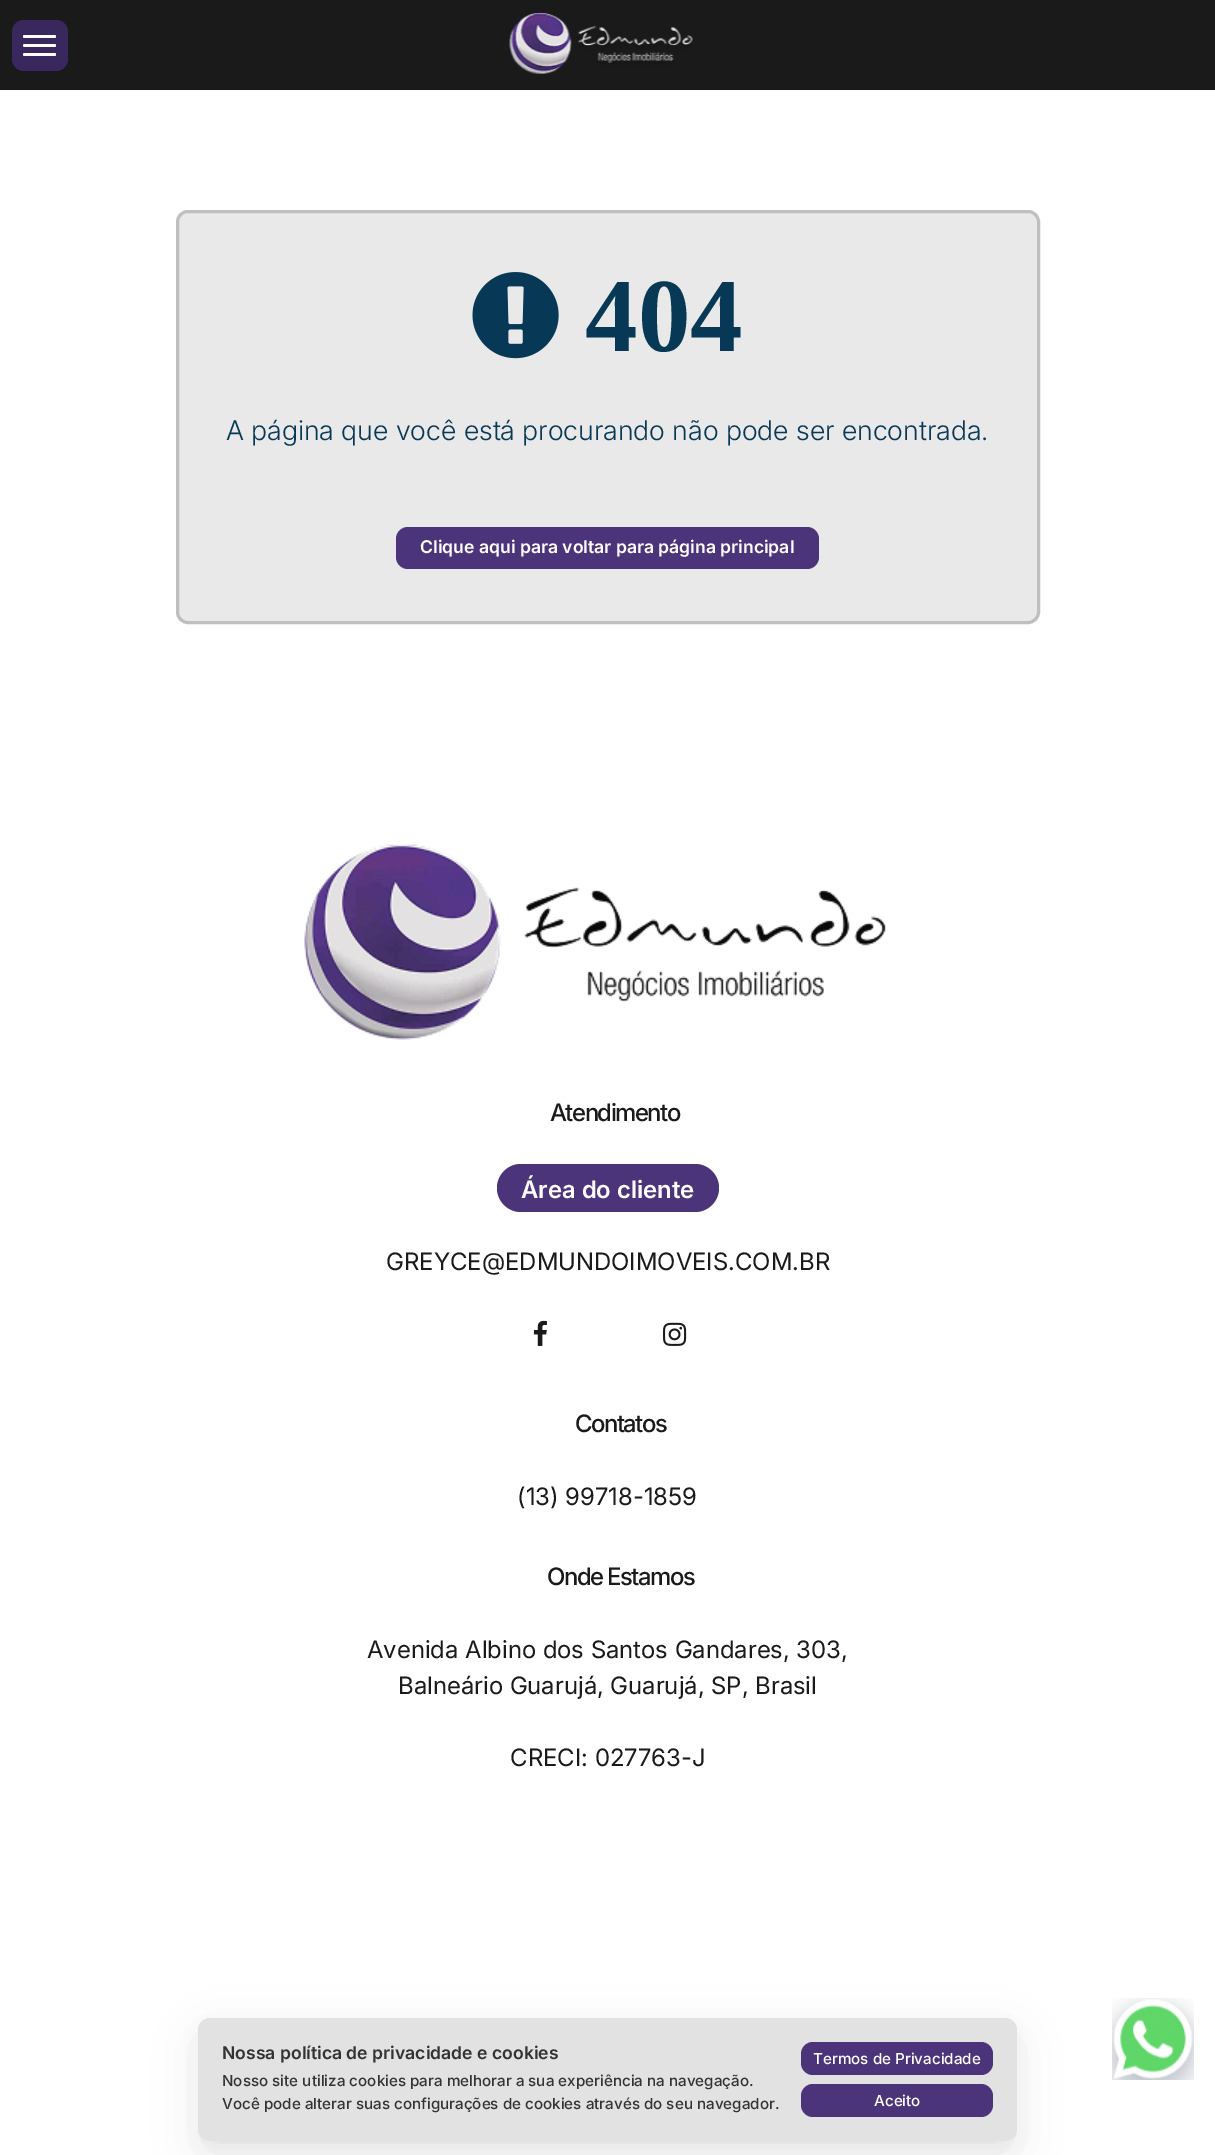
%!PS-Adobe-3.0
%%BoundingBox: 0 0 1215 2155
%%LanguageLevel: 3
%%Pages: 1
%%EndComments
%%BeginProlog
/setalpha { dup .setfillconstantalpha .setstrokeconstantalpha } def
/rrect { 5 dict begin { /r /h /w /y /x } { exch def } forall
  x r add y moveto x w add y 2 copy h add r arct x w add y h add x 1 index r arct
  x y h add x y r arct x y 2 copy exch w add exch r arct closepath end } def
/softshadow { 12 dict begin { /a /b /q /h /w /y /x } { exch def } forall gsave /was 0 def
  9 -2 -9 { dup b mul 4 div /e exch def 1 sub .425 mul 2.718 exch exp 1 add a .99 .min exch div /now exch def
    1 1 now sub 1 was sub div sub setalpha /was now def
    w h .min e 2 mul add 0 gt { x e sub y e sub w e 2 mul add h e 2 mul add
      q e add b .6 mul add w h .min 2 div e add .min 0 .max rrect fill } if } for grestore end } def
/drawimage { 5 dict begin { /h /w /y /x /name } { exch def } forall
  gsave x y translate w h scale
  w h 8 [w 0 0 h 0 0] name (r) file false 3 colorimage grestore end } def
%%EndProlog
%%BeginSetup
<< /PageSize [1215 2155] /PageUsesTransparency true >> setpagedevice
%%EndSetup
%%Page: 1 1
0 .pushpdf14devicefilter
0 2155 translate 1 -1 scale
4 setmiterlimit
1 setgray
0 0 1215 2155 rectfill
0.102 setgray
0 0 1215 90 rectfill
0.224 0.157 0.365 setrgbcolor
12 20 56 51 12 rrect fill
1 setgray
23 35 33 3 1.5 rrect fill
23 44 33 3 1.5 rrect fill
23 53 33 3 1.5 rrect fill
(images/1.raw) 509 12 184 63 drawimage
0.918 0.914 0.914 setrgbcolor
177.5 211.5 861 411 10.5 rrect gsave fill grestore
0.749 setgray
3 setlinewidth
stroke
(images/2.raw) 472 272 87 87 drawimage
0.294 0.204 0.478 setrgbcolor
396 527 423 42 12 rrect fill
0.067 setgray
204 2039 807 111 6 24 0.1 softshadow
207 2036 801 105 3 10.5 0.07 softshadow
0.886 setgray
198 2018 819 123 12 rrect fill
0.294 0.204 0.478 setrgbcolor
801 2042 192 33 12 rrect fill
801 2084 192 33 12 rrect fill
(images/3.raw) 1112 1998 82 82 drawimage
(images/4.raw) 304 844 582 196 drawimage
497 1164 222 48 24 rrect fill
(images/5.raw) 533 1320 14 26 drawimage
(images/6.raw) 663 1322 24 24 drawimage
/LiberationSerif-Bold [105 0 0 -105 0 0] selectfont
0.027 0.22 0.333 setrgbcolor
585 351 moveto (404) show
/Inter-Light [27 0 0 -27 0 0] selectfont
226 440 moveto (A página que você está procurando não pode ser encontrada.) show
/Inter-SemiBold [17.6 0 0 -17.6 0 0] selectfont
1 setgray
420 553 moveto (Clique aqui para voltar para página principal) show
0.2 setgray
222 2059 moveto (Nossa política de privacidade e cookies) show
/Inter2-Medium [15.2 0 0 -15.2 0 0] selectfont
222 2086 moveto (Nosso site utiliza cookies para melhorar a sua experiência na navegação.) show
222 2109 moveto (Você pode alterar suas configurações de cookies através do seu navegador.) show
1 setgray
813 2064 moveto (Termos de Privacidade) show
874 2106 moveto (Aceito) show
/Inter-Medium [24 0 0 -24 0 0] selectfont
0.102 setgray
550 1121 moveto -1.5 0 (Atendimento) ashow
/Inter2-SemiBold [24 0 0 -24 0 0] selectfont
1 setgray
521 1198 moveto (Área do cliente) show
/Inter-Regular [24 0 0 -24 0 0] selectfont
0.102 setgray
386 1270 moveto (GREYCE@EDMUNDOIMOVEIS.COM.BR) show
/Inter-Medium [24 0 0 -24 0 0] selectfont
575 1432 moveto -1.5 0 (Contatos) ashow
/Inter-Regular [24 0 0 -24 0 0] selectfont
517 1505 moveto (\(13\) 99718-1859) show
/Inter-Medium [24 0 0 -24 0 0] selectfont
547 1585 moveto -1.5 0 (Onde Estamos) ashow
/Inter-Regular [24 0 0 -24 0 0] selectfont
367 1658 moveto (Avenida Albino dos Santos Gandares, 303,) show
398 1694 moveto (Balneário Guarujá, Guarujá, SP, Brasil) show
510 1766 moveto (CRECI: 027763-J) show
.poppdf14devicefilter showpage
%%EOF
